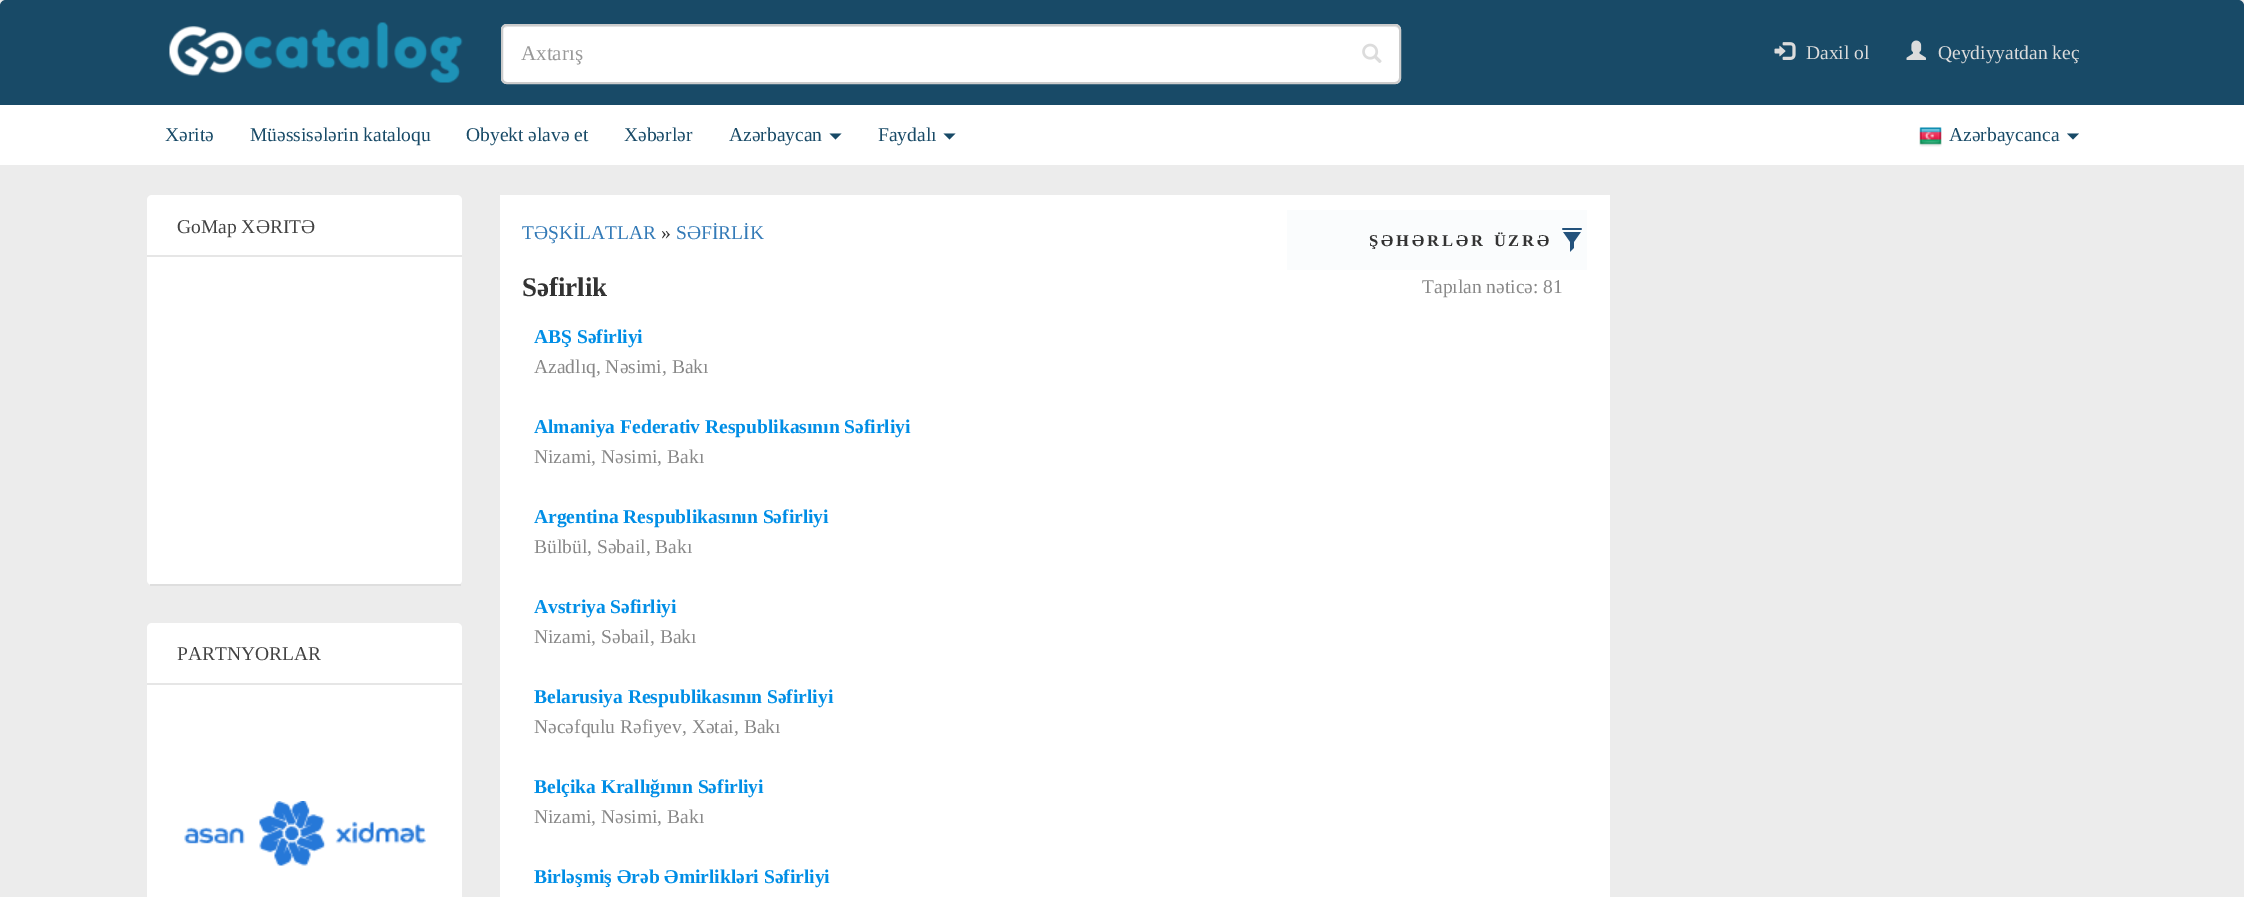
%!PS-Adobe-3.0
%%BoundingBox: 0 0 2244 897
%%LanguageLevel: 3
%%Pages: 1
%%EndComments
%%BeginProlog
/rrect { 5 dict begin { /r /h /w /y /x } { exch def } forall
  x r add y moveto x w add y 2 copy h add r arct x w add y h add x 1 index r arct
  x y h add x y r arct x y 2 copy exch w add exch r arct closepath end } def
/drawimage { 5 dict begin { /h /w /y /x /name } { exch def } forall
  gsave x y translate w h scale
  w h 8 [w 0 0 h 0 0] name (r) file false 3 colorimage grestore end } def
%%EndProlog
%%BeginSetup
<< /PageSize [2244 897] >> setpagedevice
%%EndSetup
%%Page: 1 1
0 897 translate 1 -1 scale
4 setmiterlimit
0.925 setgray
0 0 2244 897 rectfill
0.094 0.29 0.404 setrgbcolor
0 0 2244 165 6 rrect fill
(images/1.raw) 169 22 294 61 drawimage
1 setgray
501 24 900 60 6 rrect fill
0.925 setgray
newpath 507 27 moveto 1395 27 lineto 1397 27 1400 29 1400 32 curveto 1400 31 lineto 1400 28 1398 26 1395 26 curveto 508 26 lineto 506 26 505 27 504 28 curveto closepath fill
0.8 setgray
2 setlinewidth
502 25 898 58 5 rrect stroke
(images/2.raw) 1362 43 20 20 drawimage
(images/3.raw) 1774 42 22 18 drawimage
(images/4.raw) 1906 40 20 20 drawimage
1 setgray
0 105 2244 60 rectfill
0.094 0.29 0.404 setrgbcolor
newpath 829.5 133.5 moveto 841.5 133.5 lineto 835.5 139.5 lineto closepath fill
newpath 943.5 133.5 moveto 955.5 133.5 lineto 949.5 139.5 lineto closepath fill
(images/5.raw) 1919 127 23 20 drawimage
newpath 2067 133.5 moveto 2079 133.5 lineto 2073 139.5 lineto closepath fill
1 setgray
147 195 315 390 5 rrect fill
0.871 setgray
150 584 311 2 rectfill
0.902 setgray
147 255 315 2 rectfill
1 setgray
147 623 315 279 5 rrect fill
0.902 setgray
147 683 315 2 rectfill
(images/6.raw) 184 801 242 65 drawimage
1 setgray
500 195 1110 702 rectfill
0.98 0.988 0.992 setrgbcolor
1287 210 300 60 rectfill
(images/7.raw) 1562 228 20 24 drawimage
/LiberationSerif-Regular [21 0 0 -21 0 0] selectfont
0.6 setgray
521 60 moveto (Axtarış) show
/LiberationSerif-Regular [19.5 0 0 -19.5 0 0] selectfont
0.863 setgray
1806 59 moveto (Daxil ol) show
1938 59 moveto (Qeydiyyatdan keç) show
0.094 0.29 0.404 setrgbcolor
165 141 moveto (Xəritə) show
250 141 moveto (Müəssisələrin kataloqu) show
466 141 moveto (Obyekt əlavə et) show
624 141 moveto (Xəbərlər) show
729 141 moveto (Azərbaycan) show
878 141 moveto (Faydalı) show
1949 141 moveto (Azərbaycanca) show
0.259 setgray
177 233 moveto (GoMap XƏRITƏ) show
177 660 moveto (PARTNYORLAR) show
0.2 0.478 0.718 setrgbcolor
522 239 moveto (TƏŞKİLATLAR) show
0.2 setgray
661 239 moveto (») show
0.2 0.478 0.718 setrgbcolor
676 239 moveto (SƏFİRLİK) show
gsave
1307 231 246 18 rectclip
/LiberationSerif-Bold [16.5 0 0 -16.5 0 0] selectfont
0.2 setgray
1369 246 moveto 3 0 (ŞƏHƏRLƏR ÜZRƏ) ashow
grestore
/LiberationSerif-Bold [27 0 0 -27 0 0] selectfont
0.2 setgray
522 296 moveto (Səfirlik) show
/LiberationSerif-Regular [19.5 0 0 -19.5 0 0] selectfont
0.533 setgray
1422 293 moveto (Tapılan nəticə: 81) show
/LiberationSerif-Bold [19.5 0 0 -19.5 0 0] selectfont
0 0.557 0.902 setrgbcolor
534 343 moveto (ABŞ Səfirliyi) show
/LiberationSerif-Regular [19.5 0 0 -19.5 0 0] selectfont
0.533 setgray
534 373 moveto (Azadlıq, Nəsimi, Bakı) show
/LiberationSerif-Bold [19.5 0 0 -19.5 0 0] selectfont
0 0.557 0.902 setrgbcolor
534 433 moveto (Almaniya Federativ Respublikasının Səfirliyi) show
/LiberationSerif-Regular [19.5 0 0 -19.5 0 0] selectfont
0.533 setgray
534 463 moveto (Nizami, Nəsimi, Bakı) show
/LiberationSerif-Bold [19.5 0 0 -19.5 0 0] selectfont
0 0.557 0.902 setrgbcolor
534 523 moveto (Argentina Respublikasının Səfirliyi) show
/LiberationSerif-Regular [19.5 0 0 -19.5 0 0] selectfont
0.533 setgray
534 553 moveto (Bülbül, Səbail, Bakı) show
/LiberationSerif-Bold [19.5 0 0 -19.5 0 0] selectfont
0 0.557 0.902 setrgbcolor
534 613 moveto (Avstriya Səfirliyi) show
/LiberationSerif-Regular [19.5 0 0 -19.5 0 0] selectfont
0.533 setgray
534 643 moveto (Nizami, Səbail, Bakı) show
/LiberationSerif-Bold [19.5 0 0 -19.5 0 0] selectfont
0 0.557 0.902 setrgbcolor
534 703 moveto (Belarusiya Respublikasının Səfirliyi) show
/LiberationSerif-Regular [19.5 0 0 -19.5 0 0] selectfont
0.533 setgray
534 733 moveto (Nəcəfqulu Rəfiyev, Xətai, Bakı) show
/LiberationSerif-Bold [19.5 0 0 -19.5 0 0] selectfont
0 0.557 0.902 setrgbcolor
534 793 moveto (Belçika Krallığının Səfirliyi) show
/LiberationSerif-Regular [19.5 0 0 -19.5 0 0] selectfont
0.533 setgray
534 823 moveto (Nizami, Nəsimi, Bakı) show
/LiberationSerif-Bold [19.5 0 0 -19.5 0 0] selectfont
0 0.557 0.902 setrgbcolor
534 883 moveto (Birləşmiş Ərəb Əmirlikləri Səfirliyi) show
showpage
%%EOF
